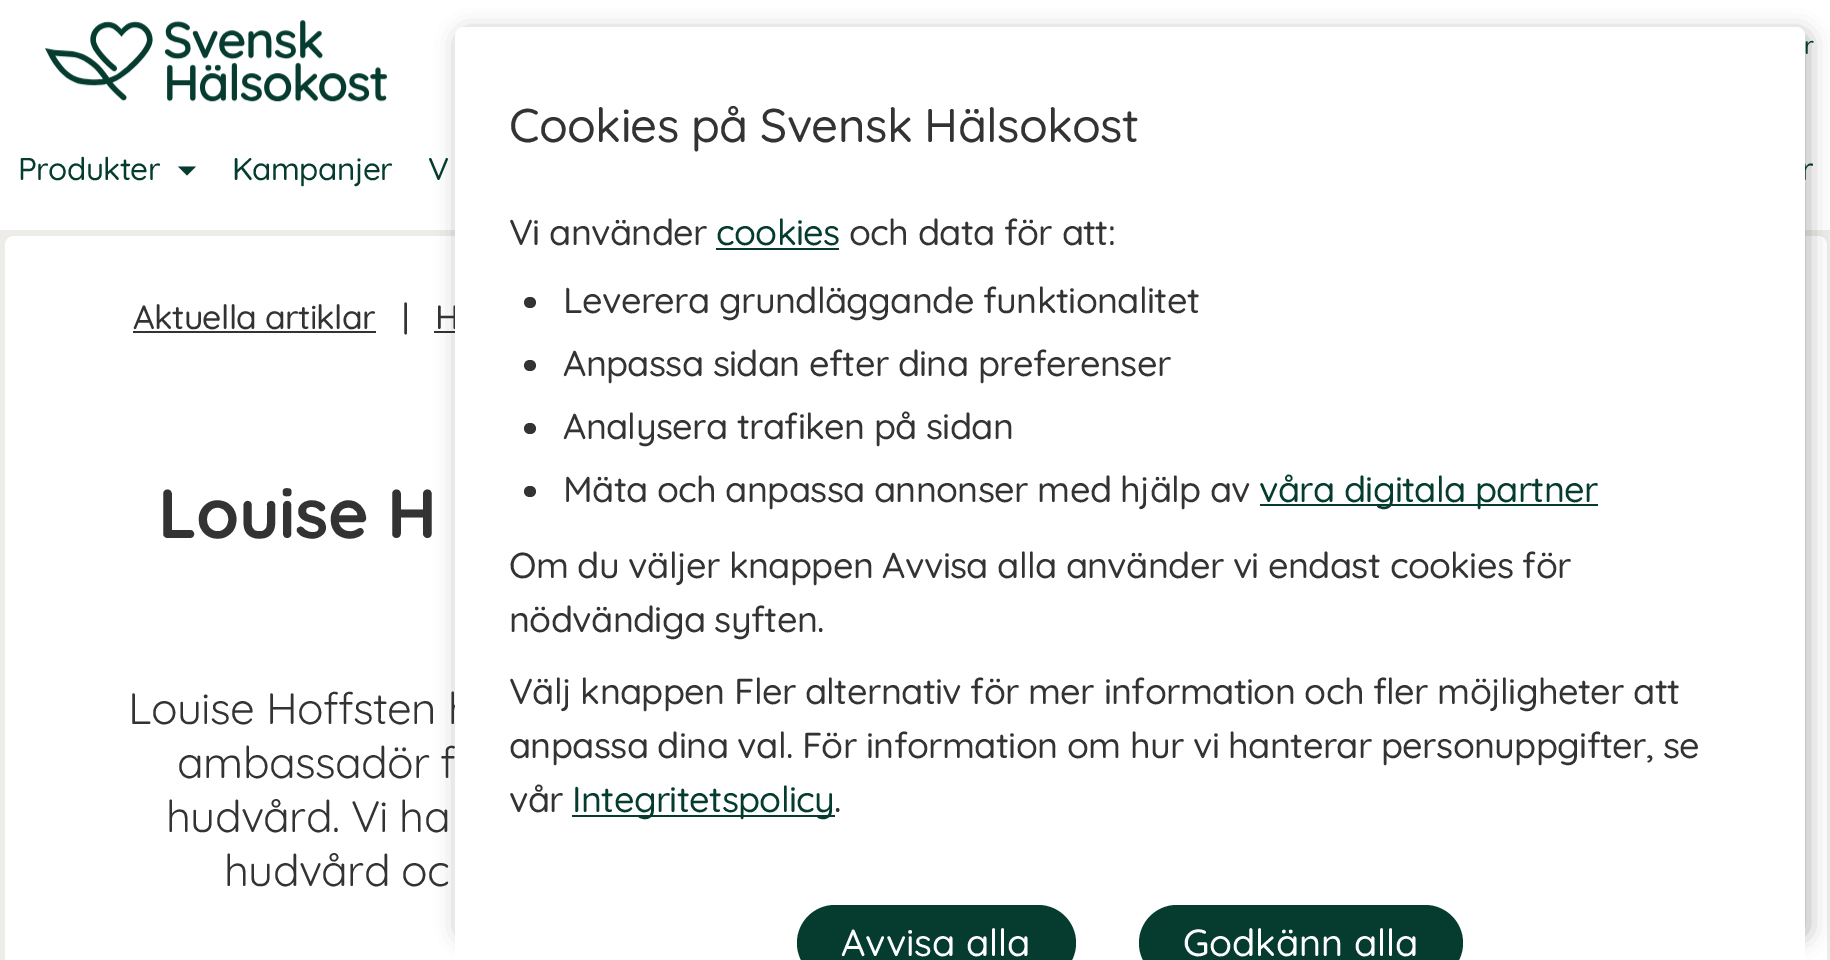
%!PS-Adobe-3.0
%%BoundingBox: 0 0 1830 960
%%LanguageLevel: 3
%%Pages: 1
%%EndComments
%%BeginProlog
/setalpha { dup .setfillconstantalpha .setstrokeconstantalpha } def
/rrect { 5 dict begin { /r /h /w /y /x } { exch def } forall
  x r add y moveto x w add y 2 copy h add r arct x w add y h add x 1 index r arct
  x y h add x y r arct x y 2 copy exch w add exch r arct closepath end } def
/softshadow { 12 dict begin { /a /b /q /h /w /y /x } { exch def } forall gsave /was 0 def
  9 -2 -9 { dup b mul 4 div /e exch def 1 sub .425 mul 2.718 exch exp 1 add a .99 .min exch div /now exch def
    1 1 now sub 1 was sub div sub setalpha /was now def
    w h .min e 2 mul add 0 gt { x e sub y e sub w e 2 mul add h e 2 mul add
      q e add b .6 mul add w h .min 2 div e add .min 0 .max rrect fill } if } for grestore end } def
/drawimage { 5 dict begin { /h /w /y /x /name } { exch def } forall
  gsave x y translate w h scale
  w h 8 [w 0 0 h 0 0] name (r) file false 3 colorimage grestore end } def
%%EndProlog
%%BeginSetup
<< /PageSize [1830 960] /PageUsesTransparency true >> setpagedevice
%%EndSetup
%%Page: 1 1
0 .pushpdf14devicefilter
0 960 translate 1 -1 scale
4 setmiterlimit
0.933 0.925 0.91 setrgbcolor
0 0 1830 960 rectfill
1 setgray
0 0 1830 230 rectfill
(images/1.raw) 45 20 342 82 drawimage
0.02 0.235 0.184 setrgbcolor
newpath 178 166.5 moveto 196 166.5 lineto 187 175.5 lineto closepath fill
1 setgray
5 236 1822 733 9 rrect fill
0.2 setgray
133 331 243 2 rectfill
434 331 21 2 rectfill
0 setgray
459 32 1350 906 9 11 0.3 softshadow
/Quicksand-Medium [25 0 0 -25 0 0] selectfont
0.02 0.235 0.184 setrgbcolor
1804 54 moveto -0.63 0 (r) ashow
/Quicksand-Medium [31.5 0 0 -31.5 0 0] selectfont
18 180 moveto -0.63 0 (Produkter) ashow
232 180 moveto -0.63 0 (Kampanjer) ashow
428 180 moveto -0.63 0 (V) ashow
1801 180 moveto -0.63 0 (r) ashow
/Quicksand-Medium [33.75 0 0 -33.75 0 0] selectfont
0.2 setgray
133 329 moveto -0.63 0 (Aktuella artiklar) ashow
402 329 moveto -0.63 0 (|) ashow
435 329 moveto -0.63 0 (H) ashow
/Quicksand-Bold [69.5 0 0 -69.5 0 0] selectfont
158 538 moveto -0.63 0 (Louise H) ashow
/Quicksand-Italic [44 0 0 -44 0 0] selectfont
128 724 moveto -0.63 0 (Louise Hoffsten h) ashow
177 778 moveto -0.63 0 (ambassadör f) ashow
166 832 moveto -0.63 0 (hudvård. Vi ha) ashow
224 886 moveto -0.63 0 (hudvård oc) ashow
1 setgray
455 27 1350 907 9 rrect fill
/Quicksand-Medium [47.25 0 0 -47.25 0 0] selectfont
0.2 setgray
509 142 moveto -0.63 0 (Cookies på Svensk Hälsokost) ashow
/Quicksand-Medium [36 0 0 -36 0 0] selectfont
509 245 moveto -0.63 0 (Vi använder) ashow
0.02 0.235 0.184 setrgbcolor
716 245 moveto -0.63 0 (cookies) ashow
716 248 123 2 rectfill
0.2 setgray
849 245 moveto -0.63 0 (och data för att:) ashow
524 297 12 11 5.5 rrect fill
563 313 moveto -0.63 0 (Leverera grundläggande funktionalitet) ashow
524 360 12 11 5.5 rrect fill
563 376 moveto -0.63 0 (Anpassa sidan efter dina preferenser) ashow
524 423 12 11 5.5 rrect fill
563 439 moveto -0.63 0 (Analysera trafiken på sidan) ashow
524 486 12 11 5.5 rrect fill
563 502 moveto -0.63 0 (Mäta och anpassa annonser med hjälp av) ashow
0.02 0.235 0.184 setrgbcolor
1260 504 338 2 rectfill
1259 502 moveto -0.63 0 (våra digitala partner) ashow
0.2 setgray
509 578 moveto -0.63 0 (Om du väljer knappen Avvisa alla använder vi endast cookies för) ashow
509 632 moveto -0.63 0 (nödvändiga syften.) ashow
509 704 moveto -0.63 0 (Välj knappen Fler alternativ för mer information och fler möjligheter att) ashow
509 758 moveto -0.63 0 (anpassa dina val. För information om hur vi hanterar personuppgifter, se) ashow
509 812 moveto -0.63 0 (vår) ashow
0.02 0.235 0.184 setrgbcolor
572 815 263 2 rectfill
572 812 moveto -0.63 0 (Integritetspolicy) ashow
0.2 setgray
834 812 moveto -0.63 0 (.) ashow
1 setgray
455 844 1350 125 9 rrect fill
0.02 0.235 0.184 setrgbcolor
797 905 279 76 38 rrect fill
/Quicksand-Medium [37.75 0 0 -37.75 0 0] selectfont
1 setgray
841 956 moveto (Avvisa alla) show
0.02 0.235 0.184 setrgbcolor
1139 905 324 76 38 rrect fill
1 setgray
1183 956 moveto (Godkänn alla) show
.poppdf14devicefilter showpage
%%EOF
